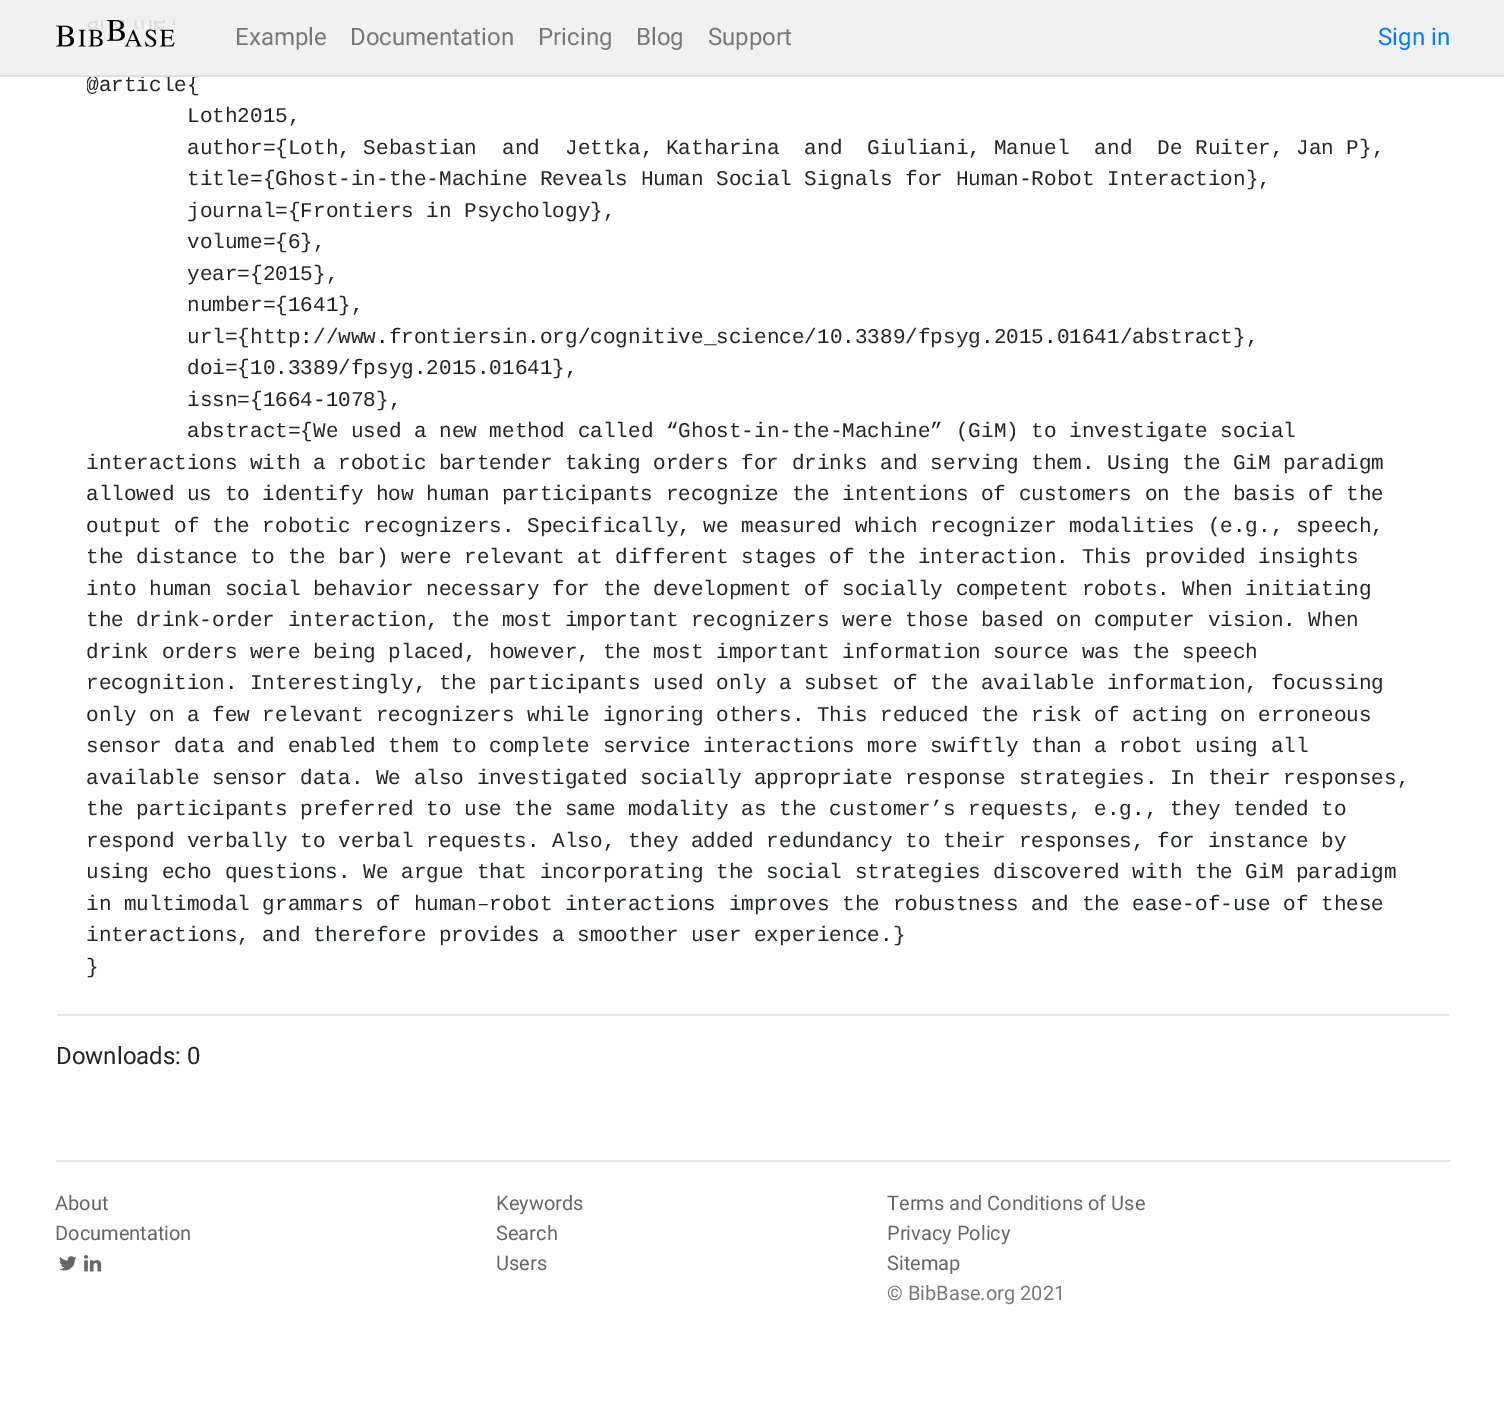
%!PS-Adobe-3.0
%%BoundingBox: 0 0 1504 1418
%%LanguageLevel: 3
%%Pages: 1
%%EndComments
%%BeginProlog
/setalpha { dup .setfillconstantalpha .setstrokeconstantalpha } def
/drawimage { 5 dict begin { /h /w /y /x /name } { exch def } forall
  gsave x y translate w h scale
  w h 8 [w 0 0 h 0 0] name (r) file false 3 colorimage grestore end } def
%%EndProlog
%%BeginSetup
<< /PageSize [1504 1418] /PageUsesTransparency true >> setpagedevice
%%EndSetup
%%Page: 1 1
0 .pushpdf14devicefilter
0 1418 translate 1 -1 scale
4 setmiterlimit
1 setgray
0 0 1504 1418 rectfill
0.9 setalpha
0.941 setgray
0 0 1504 75 rectfill
1 setalpha
(images/1.raw) 56 20 119 27 drawimage
0.902 setgray
57 1014 1392 2 rectfill
0.898 setgray
56 1160 1395 2 rectfill
(images/2.raw) 59 1256 18 15 drawimage
(images/3.raw) 84 1255 18 17 drawimage
/Roboto-Regular [24 0 0 -24 0 0] selectfont
0.467 setgray
235 45 moveto (Example) show
350 45 moveto (Documentation) show
538 45 moveto (Pricing) show
636 45 moveto (Blog) show
708 45 moveto (Support) show
0 0.482 1 setrgbcolor
1378 45 moveto (Sign in) show
gsave
87 71 1332 913 rectclip
/LiberationMono-Regular [21 0 0 -21 0 0] selectfont
0.129 0.145 0.161 setrgbcolor
86 91 moveto (@article{) show
grestore
0.867 setgray
0 75 1504 2 rectfill
/LiberationMono-Regular [21 0 0 -21 0 0] selectfont
0.129 0.145 0.161 setrgbcolor
187 122 moveto (Loth2015,) show
187 154 moveto (author={Loth, Sebastian  and  Jettka, Katharina  and  Giuliani, Manuel  and  De Ruiter, Jan P},) show
187 185 moveto (title={Ghost-in-the-Machine Reveals Human Social Signals for Human-Robot Interaction},) show
187 217 moveto (journal={Frontiers in Psychology},) show
187 248 moveto (volume={6},) show
187 280 moveto (year={2015},) show
187 311 moveto (number={1641},) show
187 343 moveto (url={http://www.frontiersin.org/cognitive_science/10.3389/fpsyg.2015.01641/abstract},) show
187 374 moveto (doi={10.3389/fpsyg.2015.01641},) show
187 406 moveto (issn={1664-1078},) show
187 437 moveto (abstract={We used a new method called “Ghost-in-the-Machine” \(GiM\) to investigate social) show
86 469 moveto (interactions with a robotic bartender taking orders for drinks and serving them. Using the GiM paradigm) show
86 500 moveto (allowed us to identify how human participants recognize the intentions of customers on the basis of the) show
86 532 moveto (output of the robotic recognizers. Specifically, we measured which recognizer modalities \(e.g., speech,) show
86 563 moveto (the distance to the bar\) were relevant at different stages of the interaction. This provided insights) show
86 595 moveto (into human social behavior necessary for the development of socially competent robots. When initiating) show
86 626 moveto (the drink-order interaction, the most important recognizers were those based on computer vision. When) show
86 658 moveto (drink orders were being placed, however, the most important information source was the speech) show
86 689 moveto (recognition. Interestingly, the participants used only a subset of the available information, focussing) show
86 721 moveto (only on a few relevant recognizers while ignoring others. This reduced the risk of acting on erroneous) show
86 752 moveto (sensor data and enabled them to complete service interactions more swiftly than a robot using all) show
86 784 moveto (available sensor data. We also investigated socially appropriate response strategies. In their responses,) show
86 815 moveto (the participants preferred to use the same modality as the customer’s requests, e.g., they tended to) show
86 847 moveto (respond verbally to verbal requests. Also, they added redundancy to their responses, for instance by) show
86 878 moveto (using echo questions. We argue that incorporating the social strategies discovered with the GiM paradigm) show
86 910 moveto (in multimodal grammars of human–robot interactions improves the robustness and the ease-of-use of these) show
86 941 moveto (interactions, and therefore provides a smoother user experience.}) show
86 973 moveto (}) show
/Roboto-Regular [24 0 0 -24 0 0] selectfont
56 1064 moveto (Downloads: 0) show
/Roboto-Regular [20 0 0 -20 0 0] selectfont
0.4 setgray
55 1210 moveto (About) show
55 1240 moveto (Documentation) show
496 1210 moveto (Keywords) show
496 1240 moveto (Search) show
496 1270 moveto (Users) show
887 1210 moveto (Terms and Conditions of Use) show
887 1240 moveto (Privacy Policy) show
887 1270 moveto (Sitemap) show
0.467 setgray
887 1300 moveto (© BibBase.org 2021) show
.poppdf14devicefilter showpage
%%EOF
